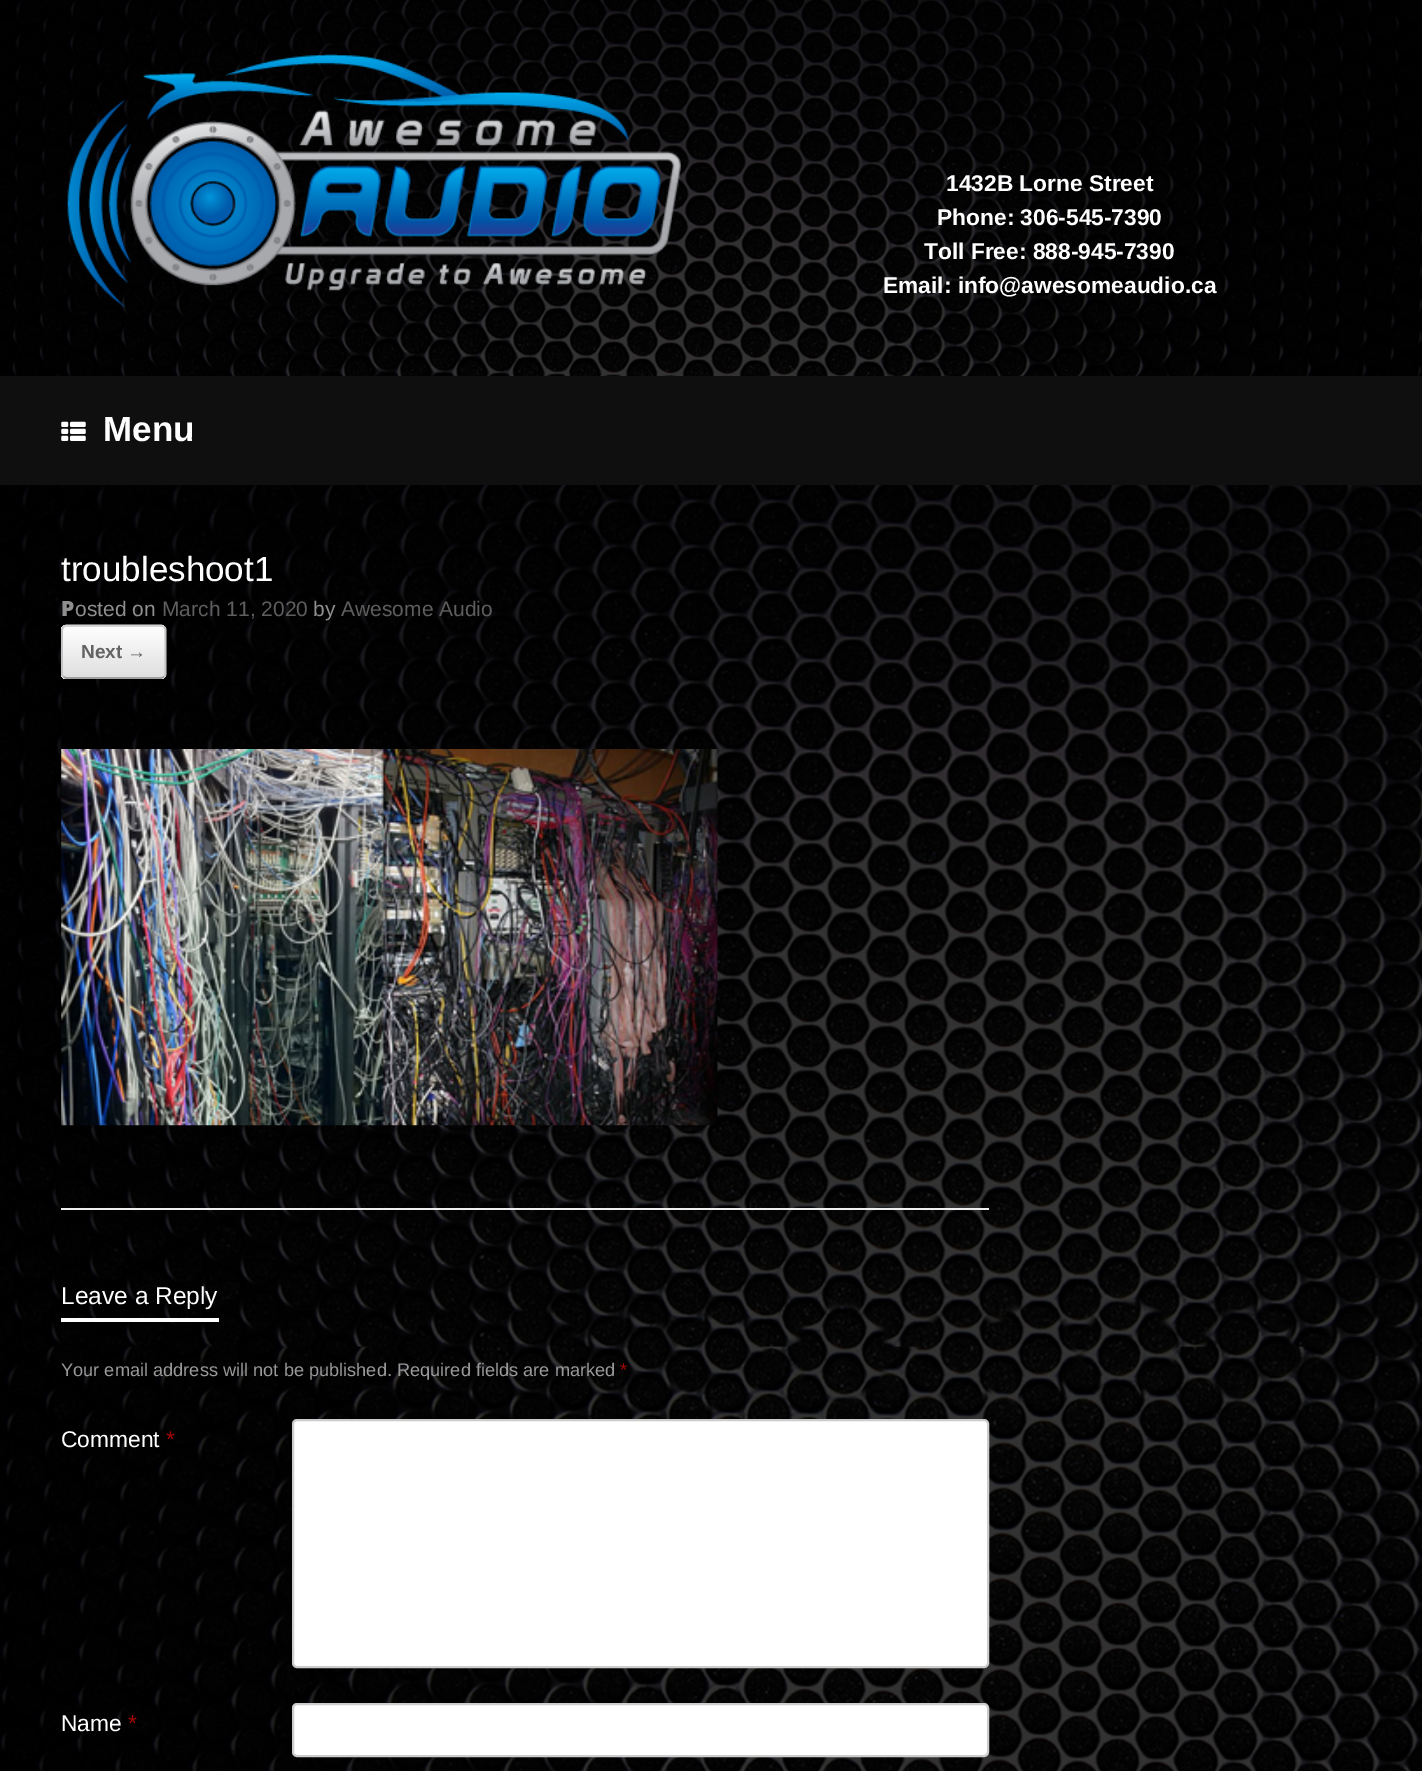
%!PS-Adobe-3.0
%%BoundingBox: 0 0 1422 1771
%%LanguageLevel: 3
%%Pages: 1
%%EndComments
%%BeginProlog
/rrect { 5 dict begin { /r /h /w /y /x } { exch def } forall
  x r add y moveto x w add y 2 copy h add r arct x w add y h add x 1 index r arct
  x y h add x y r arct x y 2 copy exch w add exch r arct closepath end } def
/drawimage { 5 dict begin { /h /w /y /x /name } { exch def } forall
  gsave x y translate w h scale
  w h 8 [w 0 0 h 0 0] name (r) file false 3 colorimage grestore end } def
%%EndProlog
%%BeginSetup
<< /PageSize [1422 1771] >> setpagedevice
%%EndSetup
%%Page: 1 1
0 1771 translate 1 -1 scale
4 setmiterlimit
1 setgray
0 0 1422 1771 rectfill
(images/1.raw) 0 0 1422 376 drawimage
(images/2.raw) 67 54 614 253 drawimage
0.059 setgray
0 376 1422 109 rectfill
(images/3.raw) 61 421 25 20 drawimage
(images/4.raw) 0 485 1422 1286 drawimage
0.933 setgray
61 1208 928 2 rectfill
gsave
61 625 105 54 5 rrect clip newpath
gsave newpath 61 625 moveto 166 625 lineto 166 627 lineto 61 627 lineto closepath clip newpath
<< /ShadingType 2 /ColorSpace /DeviceRGB /Coords [63 627 63 576] /Extend [true true] /Function << /FunctionType 2 /Domain [0 1] /C0 [0.875 0.875 0.875] /C1 [1 1 1] /N 1 >> >> shfill grestore
gsave newpath 61 627 moveto 166 627 lineto 166 677 lineto 61 677 lineto closepath clip newpath
<< /ShadingType 2 /ColorSpace /DeviceRGB /Coords [63 677 63 627] /Extend [true true] /Function << /FunctionType 2 /Domain [0 1] /C0 [0.875 0.875 0.875] /C1 [1 1 1] /N 1 >> >> shfill grestore
gsave newpath 61 677 moveto 166 677 lineto 166 679 lineto 61 679 lineto closepath clip newpath
<< /ShadingType 2 /ColorSpace /DeviceRGB /Coords [63 728 63 677] /Extend [true true] /Function << /FunctionType 2 /Domain [0 1] /C0 [0.875 0.875 0.875] /C1 [1 1 1] /N 1 >> >> shfill grestore
grestore
0.824 setgray
1.8 setlinewidth
newpath 63.5 627 moveto 66 625.5 lineto 161.5 625.5 lineto 164 627 lineto stroke
0.765 setgray
newpath 164 627 moveto 165 627.5 165.5 629 165.5 630 curveto 165.5 674 lineto 165.5 675 165 676 164 677 curveto stroke
0.624 setgray
newpath 164 677 moveto 161.5 678 lineto 66 678 lineto 63.5 677 lineto stroke
0.765 setgray
newpath 63.5 677 moveto 62.5 676 62 675 62 674 curveto 62 630 lineto 62 629 62.5 627.5 63.5 627 curveto stroke
(images/5.raw) 61 749 657 377 drawimage
1 setgray
61 1318 158 4 rectfill
293 1420 695 247 4 rrect gsave fill grestore
0.8 setgray
2 setlinewidth
stroke
1 setgray
293 1704 695 52 4 rrect gsave fill grestore
0.8 setgray
stroke
/LiberationSans-Bold [22.75 0 0 -22.75 0 0] selectfont
1 setgray
946 191 moveto (1432B Lorne Street) show
937 225 moveto (Phone: 306-545-7390) show
924 259 moveto (Toll Free: 888-945-7390) show
883 293 moveto (Email: info@awesomeaudio.ca) show
/LiberationSans-Bold [35 0 0 -35 0 0] selectfont
103 441 moveto (Menu) show
/LiberationSans-Regular [35 0 0 -35 0 0] selectfont
61 581 moveto (troubleshoot1) show
/NotoSans-Black [21 0 0 -21 0 0] selectfont
0.561 setgray
61 616 moveto (P) show
/LiberationSans-Regular [21 0 0 -21 0 0] selectfont
75 616 moveto (osted on) show
0.369 setgray
162 616 moveto (March 11, 2020) show
0.561 setgray
313 616 moveto (by) show
0.369 setgray
341 616 moveto (Awesome Audio) show
/LiberationSans-Bold [19 0 0 -19 0 0] selectfont
0.392 setgray
81 658 moveto (Next →) show
/LiberationSans-Regular [24.5 0 0 -24.5 0 0] selectfont
1 setgray
61 1304 moveto (Leave a Reply) show
/LiberationSans-Regular [18.2 0 0 -18.2 0 0] selectfont
0.6 setgray
61 1376 moveto (Your email address will not be published. Required fields are marked) show
0.643 0.031 0.008 setrgbcolor
620 1376 moveto (*) show
/LiberationSans-Regular [22.75 0 0 -22.75 0 0] selectfont
1 setgray
61 1447 moveto (Comment) show
0.643 0.031 0.008 setrgbcolor
166 1447 moveto (*) show
1 setgray
61 1731 moveto (Name) show
0.643 0.031 0.008 setrgbcolor
128 1731 moveto (*) show
showpage
%%EOF
